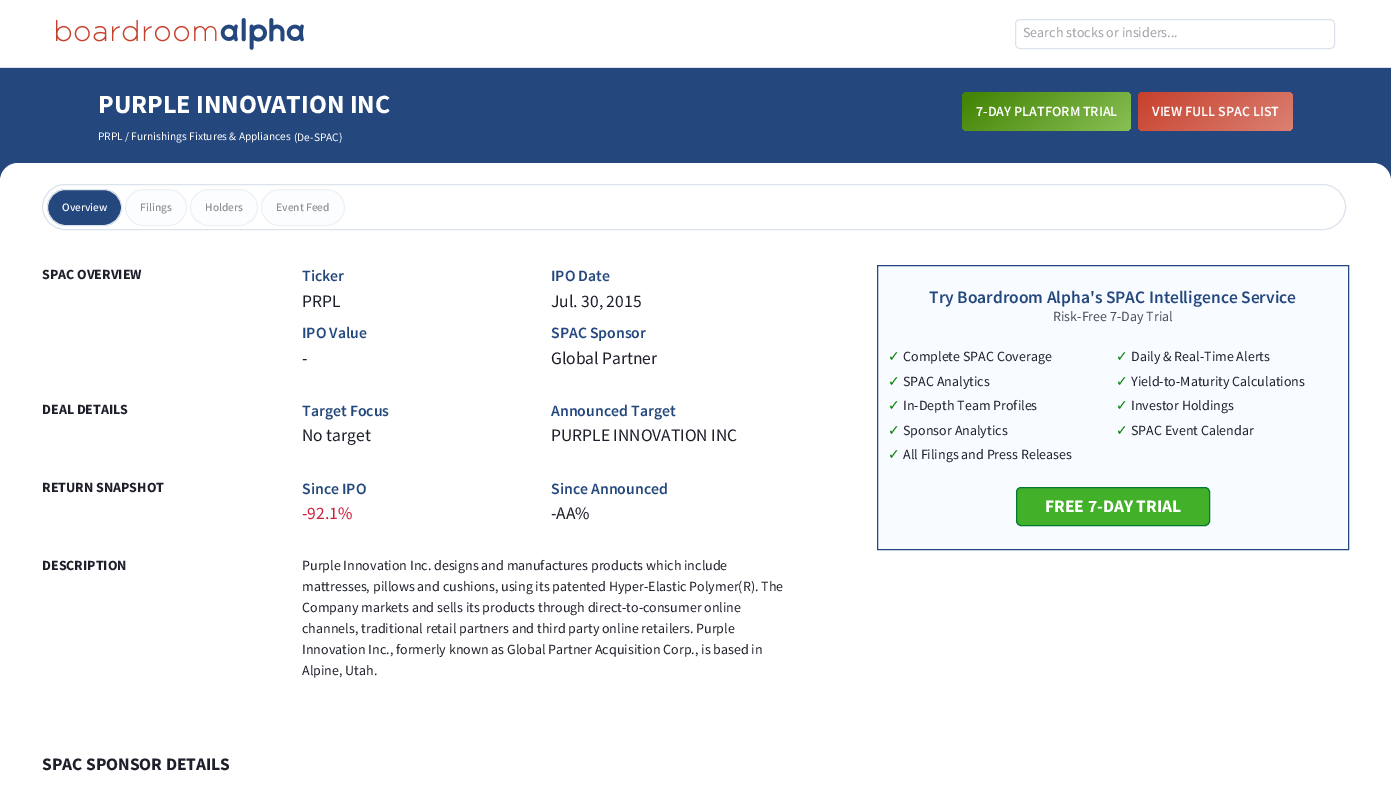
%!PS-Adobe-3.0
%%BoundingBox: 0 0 1391 801
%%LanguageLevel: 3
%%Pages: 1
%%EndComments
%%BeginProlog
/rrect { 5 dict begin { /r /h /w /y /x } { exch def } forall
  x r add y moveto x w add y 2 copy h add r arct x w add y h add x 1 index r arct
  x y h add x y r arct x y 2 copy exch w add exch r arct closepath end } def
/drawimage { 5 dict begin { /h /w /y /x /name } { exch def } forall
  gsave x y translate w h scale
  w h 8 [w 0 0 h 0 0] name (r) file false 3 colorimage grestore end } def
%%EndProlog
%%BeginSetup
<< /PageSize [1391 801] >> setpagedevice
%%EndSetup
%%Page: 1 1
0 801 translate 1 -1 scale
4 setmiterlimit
1 setgray
0 0 1391 801 rectfill
0.867 0.89 0.929 setrgbcolor
0 67 1391 1 rectfill
(images/1.raw) 56 18 248 32 drawimage
1015.5 19.5 319 29 4.5 rrect stroke
0.141 0.282 0.494 setrgbcolor
0 68 1391 113 rectfill
gsave 962 92 169 39 5 rrect clip newpath
<< /ShadingType 2 /ColorSpace /DeviceRGB /Coords [1005 58 1088 165] /Extend [true true] /Function << /FunctionType 2 /Domain [0 1] /C0 [0.251 0.51 0.008] /C1 [0.537 0.753 0.333] /N 1 >> >> shfill grestore
gsave 1138 92 155 39 5 rrect clip newpath
<< /ShadingType 2 /ColorSpace /DeviceRGB /Coords [1177 62 1254 161] /Extend [true true] /Function << /FunctionType 2 /Domain [0 1] /C0 [0.78 0.251 0.173] /C1 [0.859 0.506 0.455] /N 1 >> >> shfill grestore
1 setgray
0 163 1391 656 18 rrect fill
0.867 0.89 0.929 setrgbcolor
42.5 184.5 1303 45 22.5 rrect stroke
0.141 0.282 0.494 setrgbcolor
47.5 189.5 74 36 18 rrect gsave fill grestore
0.867 0.89 0.929 setrgbcolor
stroke
0.988 0.992 1 setrgbcolor
125.5 189.5 61 36 18 rrect gsave fill grestore
0.933 0.945 0.965 setrgbcolor
stroke
0.988 0.992 1 setrgbcolor
190.5 189.5 67 36 18 rrect gsave fill grestore
0.933 0.945 0.965 setrgbcolor
stroke
0.988 0.992 1 setrgbcolor
261.5 189.5 83 36 18 rrect gsave fill grestore
0.933 0.945 0.965 setrgbcolor
stroke
0.973 0.984 1 setrgbcolor
newpath 877.5 265.5 moveto 1348.5 265.5 lineto 1348.5 549.5 lineto 877.5 549.5 lineto closepath gsave fill grestore
0.141 0.282 0.494 setrgbcolor
stroke
0.263 0.69 0.165 setrgbcolor
1016.5 487.5 193 38 4.5 rrect gsave fill grestore
0 0.478 0.2 setrgbcolor
stroke
/Mada-Regular [14 0 0 -14 0 0] selectfont
0.631 0.631 0.667 setrgbcolor
1023 37 moveto (Search stocks or insiders...) show
/Mada-Bold [26.25 0 0 -26.25 0 0] selectfont
1 setgray
98 113 moveto (PURPLE INNOVATION INC) show
/Mada-Regular [11.4 0 0 -11.4 0 0] selectfont
98 140 moveto (PRPL / Furnishings Fixtures & Appliances) show
294 141 moveto (\(De-SPAC\)) show
/Mada-SemiBold [14 0 0 -14 0 0] selectfont
976 116 moveto (7-DAY PLATFORM TRIAL) show
1152 116 moveto (VIEW FULL SPAC LIST) show
/Mada-Medium [11.4 0 0 -11.4 0 0] selectfont
62 211 moveto (Overview) show
0.557 0.561 0.584 setrgbcolor
140 211 moveto (Filings) show
205 211 moveto (Holders) show
276 211 moveto (Event Feed) show
/Mada-Bold [14 0 0 -14 0 0] selectfont
0.114 0.122 0.165 setrgbcolor
42 279 moveto (SPAC OVERVIEW) show
/Mada-SemiBold [15.75 0 0 -15.75 0 0] selectfont
0.141 0.282 0.494 setrgbcolor
302 281 moveto (Ticker) show
/Mada-Regular [17.5 0 0 -17.5 0 0] selectfont
0.114 0.122 0.165 setrgbcolor
302 307 moveto (PRPL) show
/Mada-SemiBold [15.75 0 0 -15.75 0 0] selectfont
0.141 0.282 0.494 setrgbcolor
551 281 moveto (IPO Date) show
/Mada-Regular [17.5 0 0 -17.5 0 0] selectfont
0.114 0.122 0.165 setrgbcolor
551 307 moveto (Jul. 30, 2015) show
/Mada-SemiBold [15.75 0 0 -15.75 0 0] selectfont
0.141 0.282 0.494 setrgbcolor
302 338 moveto (IPO Value) show
/Mada-Regular [17.5 0 0 -17.5 0 0] selectfont
0.114 0.122 0.165 setrgbcolor
302 364 moveto (-) show
/Mada-SemiBold [15.75 0 0 -15.75 0 0] selectfont
0.141 0.282 0.494 setrgbcolor
551 338 moveto (SPAC Sponsor) show
/Mada-Regular [17.5 0 0 -17.5 0 0] selectfont
0.114 0.122 0.165 setrgbcolor
551 364 moveto (Global Partner) show
/Mada-Bold [14 0 0 -14 0 0] selectfont
42 414 moveto (DEAL DETAILS) show
/Mada-SemiBold [15.75 0 0 -15.75 0 0] selectfont
0.141 0.282 0.494 setrgbcolor
302 416 moveto (Target Focus) show
/Mada-Regular [17.5 0 0 -17.5 0 0] selectfont
0.114 0.122 0.165 setrgbcolor
302 441 moveto (No target) show
/Mada-SemiBold [15.75 0 0 -15.75 0 0] selectfont
0.141 0.282 0.494 setrgbcolor
551 416 moveto (Announced Target) show
/Mada-Regular [17.5 0 0 -17.5 0 0] selectfont
0.114 0.122 0.165 setrgbcolor
551 441 moveto (PURPLE INNOVATION INC) show
/Mada-Bold [14 0 0 -14 0 0] selectfont
42 492 moveto (RETURN SNAPSHOT) show
/Mada-SemiBold [15.75 0 0 -15.75 0 0] selectfont
0.141 0.282 0.494 setrgbcolor
302 494 moveto (Since IPO) show
/Mada-Regular [17.5 0 0 -17.5 0 0] selectfont
0.8 0.125 0.235 setrgbcolor
302 519 moveto (-92.1%) show
/Mada-SemiBold [15.75 0 0 -15.75 0 0] selectfont
0.141 0.282 0.494 setrgbcolor
551 494 moveto (Since Announced) show
/Mada-Regular [17.5 0 0 -17.5 0 0] selectfont
0.114 0.122 0.165 setrgbcolor
551 519 moveto (-AA%) show
/Mada-Bold [14 0 0 -14 0 0] selectfont
42 570 moveto (DESCRIPTION) show
/Mada-Regular [14 0 0 -14 0 0] selectfont
302 570 moveto (Purple Innovation Inc. designs and manufactures products which include) show
302 591 moveto (mattresses, pillows and cushions, using its patented Hyper-Elastic Polymer\(R\). The) show
302 612 moveto (Company markets and sells its products through direct-to-consumer online) show
302 633 moveto (channels, traditional retail partners and third party online retailers. Purple) show
302 654 moveto (Innovation Inc., formerly known as Global Partner Acquisition Corp., is based in) show
302 675 moveto (Alpine, Utah.) show
/Mada-SemiBold [17.5 0 0 -17.5 0 0] selectfont
0.141 0.282 0.494 setrgbcolor
929 303 moveto (Try Boardroom Alpha's SPAC Intelligence Service) show
/Mada-Regular [14 0 0 -14 0 0] selectfont
0.286 0.318 0.369 setrgbcolor
1053 321 moveto (Risk-Free 7-Day Trial) show
/DejaVuSans-Regular [14 0 0 -14 0 0] selectfont
0 0.502 0 setrgbcolor
888 361 moveto (✓) show
/Mada-Regular [14 0 0 -14 0 0] selectfont
0.114 0.122 0.165 setrgbcolor
903 361 moveto (Complete SPAC Coverage) show
/DejaVuSans-Regular [14 0 0 -14 0 0] selectfont
0 0.502 0 setrgbcolor
888 386 moveto (✓) show
/Mada-Regular [14 0 0 -14 0 0] selectfont
0.114 0.122 0.165 setrgbcolor
903 386 moveto (SPAC Analytics) show
/DejaVuSans-Regular [14 0 0 -14 0 0] selectfont
0 0.502 0 setrgbcolor
888 410 moveto (✓) show
/Mada-Regular [14 0 0 -14 0 0] selectfont
0.114 0.122 0.165 setrgbcolor
903 410 moveto (In-Depth Team Profiles) show
/DejaVuSans-Regular [14 0 0 -14 0 0] selectfont
0 0.502 0 setrgbcolor
888 435 moveto (✓) show
/Mada-Regular [14 0 0 -14 0 0] selectfont
0.114 0.122 0.165 setrgbcolor
903 435 moveto (Sponsor Analytics) show
/DejaVuSans-Regular [14 0 0 -14 0 0] selectfont
0 0.502 0 setrgbcolor
888 459 moveto (✓) show
/Mada-Regular [14 0 0 -14 0 0] selectfont
0.114 0.122 0.165 setrgbcolor
903 459 moveto (All Filings and Press Releases) show
/DejaVuSans-Regular [14 0 0 -14 0 0] selectfont
0 0.502 0 setrgbcolor
1116 361 moveto (✓) show
/Mada-Regular [14 0 0 -14 0 0] selectfont
0.114 0.122 0.165 setrgbcolor
1131 361 moveto (Daily & Real-Time Alerts) show
/DejaVuSans-Regular [14 0 0 -14 0 0] selectfont
0 0.502 0 setrgbcolor
1116 386 moveto (✓) show
/Mada-Regular [14 0 0 -14 0 0] selectfont
0.114 0.122 0.165 setrgbcolor
1131 386 moveto (Yield-to-Maturity Calculations) show
/DejaVuSans-Regular [14 0 0 -14 0 0] selectfont
0 0.502 0 setrgbcolor
1116 410 moveto (✓) show
/Mada-Regular [14 0 0 -14 0 0] selectfont
0.114 0.122 0.165 setrgbcolor
1131 410 moveto (Investor Holdings) show
/DejaVuSans-Regular [14 0 0 -14 0 0] selectfont
0 0.502 0 setrgbcolor
1116 435 moveto (✓) show
/Mada-Regular [14 0 0 -14 0 0] selectfont
0.114 0.122 0.165 setrgbcolor
1131 435 moveto (SPAC Event Calendar) show
/Mada-Bold [17.5 0 0 -17.5 0 0] selectfont
1 setgray
1045 512 moveto (FREE 7-DAY TRIAL) show
0.114 0.122 0.165 setrgbcolor
42 770 moveto (SPAC SPONSOR DETAILS) show
showpage
%%EOF
